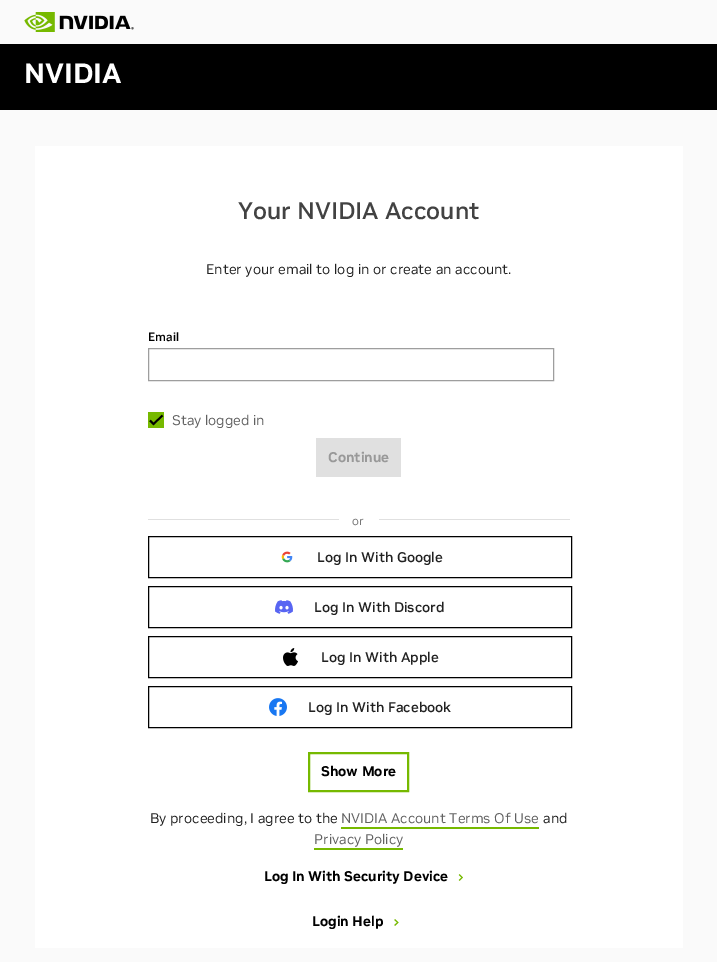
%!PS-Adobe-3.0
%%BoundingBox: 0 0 717 962
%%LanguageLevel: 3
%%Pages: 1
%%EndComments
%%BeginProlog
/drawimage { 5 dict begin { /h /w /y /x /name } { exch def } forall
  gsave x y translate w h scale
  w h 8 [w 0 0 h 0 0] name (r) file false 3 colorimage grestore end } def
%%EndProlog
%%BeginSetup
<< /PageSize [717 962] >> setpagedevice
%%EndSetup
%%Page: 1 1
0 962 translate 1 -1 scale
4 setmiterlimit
0.98 setgray
0 0 717 962 rectfill
(images/1.raw) 24 12 110 20 drawimage
0 setgray
0 44 717 66 rectfill
1 setgray
35 146 648 802 rectfill
0.62 setgray
148.5 348.5 405 32 rectstroke
0.463 0.725 0 setrgbcolor
148 412 16 16 rectfill
0 setgray
1.8 setlinewidth
newpath 150 420.5 moveto 153.5 424 lineto 162.5 415.5 lineto stroke
0.878 setgray
316 438 85 39 rectfill
148 519 422 1 rectfill
1 setgray
339 519 40 1 rectfill
0 setgray
1 setlinewidth
148.5 536.5 423 41 rectstroke
(images/2.raw) 281 551 12 12 drawimage
148.5 586.5 423 41 rectstroke
(images/3.raw) 275 600 18 14 drawimage
148.5 636.5 423 41 rectstroke
(images/4.raw) 283 648 15 18 drawimage
148.5 686.5 423 41 rectstroke
(images/5.raw) 269 698 18 18 drawimage
0.463 0.725 0 setrgbcolor
2 setlinewidth
309 753 99 38 rectstroke
341 827 198 2 rectfill
314 848 89 2 rectfill
(images/6.raw) 458 874 5 7 drawimage
(images/7.raw) 394 919 5 7 drawimage
/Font-Bold [28 0 0 -28 0 0] selectfont
1 setgray
24 83 moveto (NVIDIA) show
/Font-Medium [24 0 0 -24 0 0] selectfont
0.259 setgray
238 219 moveto (Your NVIDIA Account) show
/Font-Regular [14 0 0 -14 0 0] selectfont
0.129 setgray
206 274 moveto (Enter your email to log in or create an account.) show
/Font-Medium [12 0 0 -12 0 0] selectfont
0 setgray
148 341 moveto (Email) show
/Font-Regular [14 0 0 -14 0 0] selectfont
0.38 setgray
172 425 moveto (Stay logged in) show
/Font-Bold [14 0 0 -14 0 0] selectfont
0.6 setgray
328 462 moveto (Continue) show
/Font-Regular [12 0 0 -12 0 0] selectfont
0.463 setgray
352 525 moveto (or) show
/Font-Medium [14 0 0 -14 0 0] selectfont
0.129 setgray
317 562 moveto (Log In With Google) show
314 612 moveto (Log In With Discord) show
321 662 moveto (Log In With Apple) show
308 712 moveto (Log In With Facebook) show
/Font-Bold [14 0 0 -14 0 0] selectfont
0 setgray
321 776 moveto (Show More) show
/Font-Regular [14 0 0 -14 0 0] selectfont
0.129 setgray
150 823 moveto (By proceeding, I agree to the) show
0.38 setgray
341 823 moveto (NVIDIA Account Terms Of Use) show
0.129 setgray
543 823 moveto (and) show
0.38 setgray
314 844 moveto (Privacy Policy) show
/Font-Bold [14 0 0 -14 0 0] selectfont
0 setgray
264 881 moveto (Log In With Security Device) show
312 926 moveto (Login Help) show
showpage
%%EOF
